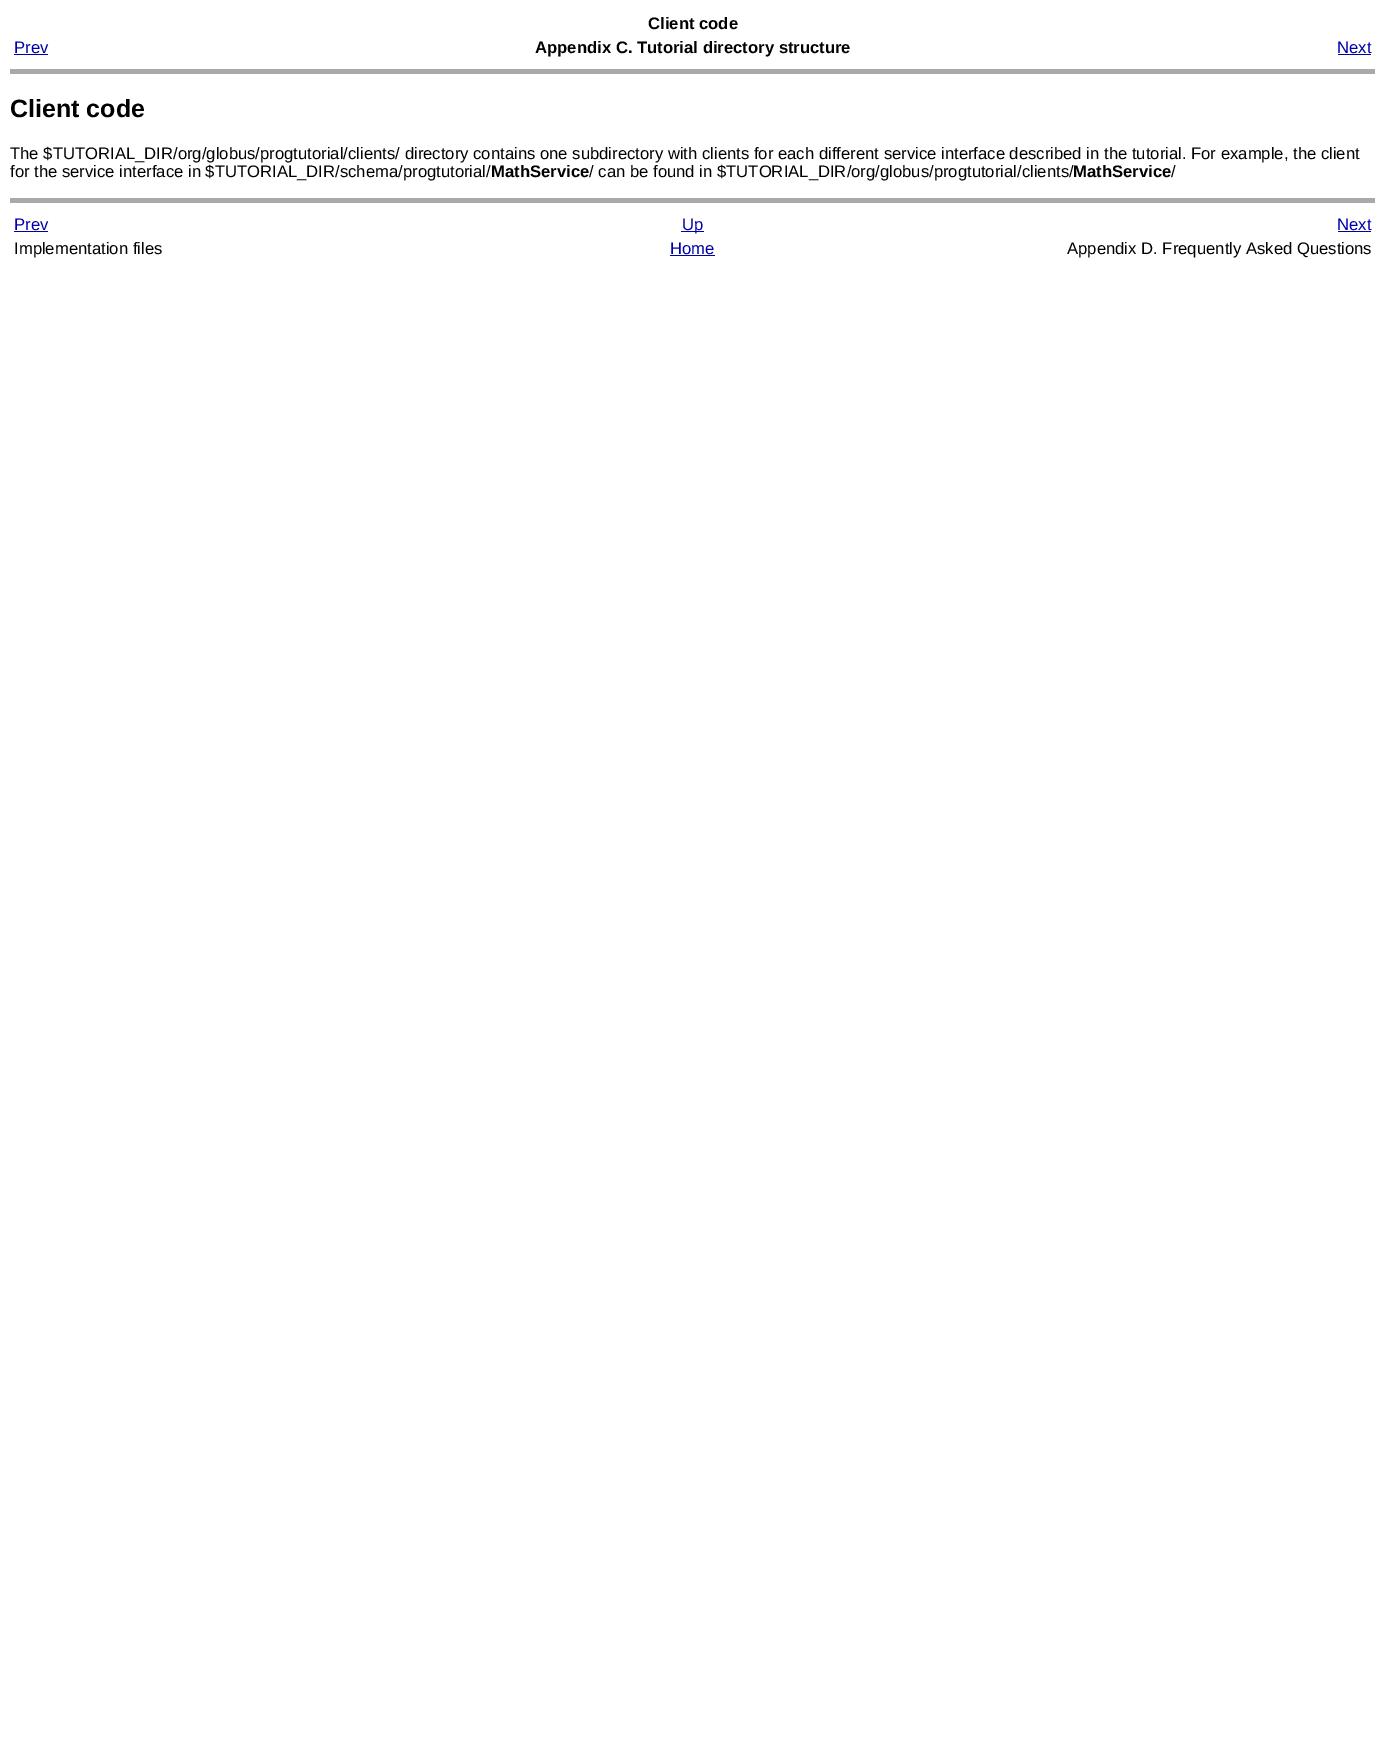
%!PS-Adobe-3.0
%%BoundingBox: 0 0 1385 1741
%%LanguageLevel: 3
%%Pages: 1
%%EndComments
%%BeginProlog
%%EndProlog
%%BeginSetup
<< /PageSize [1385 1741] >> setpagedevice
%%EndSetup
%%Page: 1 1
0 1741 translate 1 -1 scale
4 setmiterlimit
1 setgray
0 0 1385 1741 rectfill
0 0 0.667 setrgbcolor
14 54 34 1 rectfill
1338 54 33 1 rectfill
0.663 setgray
10 69 1365 5 rectfill
10 198 1365 5 rectfill
0 0 0.667 setrgbcolor
14 231 34 1 rectfill
681 231 23 1 rectfill
1338 231 33 1 rectfill
670 255 45 1 rectfill
/LiberationSans-Bold [16.67 0 0 -16.67 0 0] selectfont
0 setgray
648 29 moveto (Client code) show
/LiberationSans-Regular [16.67 0 0 -16.67 0 0] selectfont
0 0 0.667 setrgbcolor
14 53 moveto (Prev) show
/LiberationSans-Bold [16.67 0 0 -16.67 0 0] selectfont
0 setgray
535 53 moveto (Appendix C. Tutorial directory structure) show
/LiberationSans-Regular [16.67 0 0 -16.67 0 0] selectfont
0 0 0.667 setrgbcolor
1337 53 moveto (Next) show
/LiberationSans-Bold [25 0 0 -25 0 0] selectfont
0 setgray
10 117 moveto (Client code) show
/LiberationSans-Regular [16.67 0 0 -16.67 0 0] selectfont
10 159 moveto (The $TUTORIAL_DIR/org/globus/progtutorial/clients/ directory contains one subdirectory with clients for each different service interface described in the tutorial. For example, the client) show
10 177 moveto (for the service interface in $TUTORIAL_DIR/schema/progtutorial/) show
/LiberationSans-Bold [16.67 0 0 -16.67 0 0] selectfont
491 177 moveto (MathService) show
/LiberationSans-Regular [16.67 0 0 -16.67 0 0] selectfont
589 177 moveto (/ can be found in $TUTORIAL_DIR/org/globus/progtutorial/clients/) show
/LiberationSans-Bold [16.67 0 0 -16.67 0 0] selectfont
1073 177 moveto (MathService) show
/LiberationSans-Regular [16.67 0 0 -16.67 0 0] selectfont
1171 177 moveto (/) show
0 0 0.667 setrgbcolor
14 230 moveto (Prev) show
682 230 moveto (Up) show
1337 230 moveto (Next) show
0 setgray
14 254 moveto (Implementation files) show
0 0 0.667 setrgbcolor
670 254 moveto (Home) show
0 setgray
1067 254 moveto (Appendix D. Frequently Asked Questions) show
showpage
%%EOF
